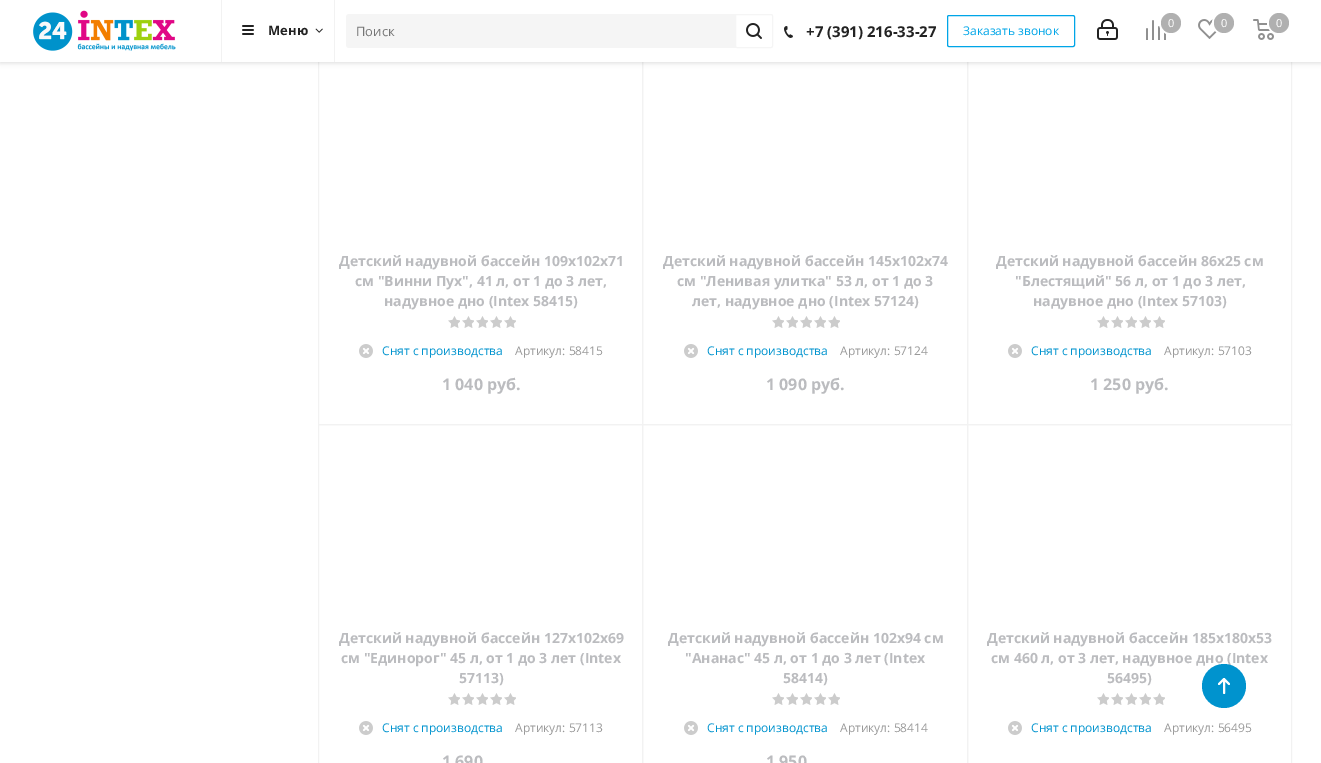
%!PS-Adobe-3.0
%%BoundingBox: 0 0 1321 763
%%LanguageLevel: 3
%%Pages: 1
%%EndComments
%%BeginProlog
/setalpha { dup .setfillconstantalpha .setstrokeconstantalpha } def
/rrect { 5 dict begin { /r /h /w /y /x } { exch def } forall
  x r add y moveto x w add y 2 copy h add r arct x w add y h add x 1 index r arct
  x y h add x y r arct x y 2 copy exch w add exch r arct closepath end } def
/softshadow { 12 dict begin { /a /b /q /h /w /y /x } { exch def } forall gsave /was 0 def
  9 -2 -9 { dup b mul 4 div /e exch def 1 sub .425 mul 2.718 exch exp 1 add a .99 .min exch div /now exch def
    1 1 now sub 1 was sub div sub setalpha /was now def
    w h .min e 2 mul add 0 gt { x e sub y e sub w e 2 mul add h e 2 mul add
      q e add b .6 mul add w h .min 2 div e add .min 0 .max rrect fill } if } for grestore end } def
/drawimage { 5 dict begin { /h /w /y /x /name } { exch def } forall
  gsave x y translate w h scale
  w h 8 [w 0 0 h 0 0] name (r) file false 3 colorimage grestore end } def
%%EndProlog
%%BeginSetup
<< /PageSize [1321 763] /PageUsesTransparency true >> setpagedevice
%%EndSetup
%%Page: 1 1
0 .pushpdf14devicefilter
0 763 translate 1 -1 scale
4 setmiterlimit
1 setgray
0 0 1321 763 rectfill
0.949 setgray
318.5 47.5 324 377 rectstroke
642.5 47.5 325 377 rectstroke
967.5 47.5 324 377 rectstroke
0 setgray
0 1 1321 62 0 2.5 0.14 softshadow
1 setgray
0 0 1321 62 rectfill
0.949 setgray
221 0 1 62 rectfill
(images/1.raw) 33 10 143 41 drawimage
(images/2.raw) 1097 19 21 21 drawimage
(images/3.raw) 1146 20 20 20 drawimage
gsave
1129 0 53 62 rectclip
1 setgray
2 setlinewidth
newpath 1171 23 11 0 360 arc closepath stroke
grestore
0.69 setgray
newpath 1171 23 10 0 360 arc closepath fill
(images/4.raw) 1198 19 20 20 drawimage
1 setgray
2 setlinewidth
newpath 1224 23 11 0 360 arc closepath stroke
0.69 setgray
newpath 1224 23 10 0 360 arc closepath fill
(images/5.raw) 1253 19 21 21 drawimage
1 setgray
newpath 1279 23 11 0 360 arc closepath stroke
0.69 setgray
newpath 1279 23 10 0 360 arc closepath fill
0.949 setgray
334 0 1 62 rectfill
(images/6.raw) 242 25 12 10 drawimage
(images/7.raw) 315 28 8 5 drawimage
0.961 setgray
346 14 427 34 3 rrect fill
1 setgray
735.5 14.5 37 33 1.5 rrect gsave fill grestore
0.961 setgray
1 setlinewidth
stroke
(images/8.raw) 746 23 16 16 drawimage
(images/9.raw) 784 26 9 12 drawimage
0 0.647 0.906 setrgbcolor
947.5 15.5 127 31 1.5 rrect stroke
(images/10.raw) 448 316 12 12 drawimage
(images/10.raw) 462 316 12 12 drawimage
(images/10.raw) 476 316 12 12 drawimage
(images/10.raw) 490 316 12 12 drawimage
(images/10.raw) 504 316 12 12 drawimage
(images/11.raw) 359 344 14 14 drawimage
(images/10.raw) 772 316 12 12 drawimage
(images/10.raw) 786 316 12 12 drawimage
(images/10.raw) 800 316 12 12 drawimage
(images/10.raw) 814 316 12 12 drawimage
(images/10.raw) 828 316 12 12 drawimage
(images/11.raw) 684 344 14 14 drawimage
(images/10.raw) 1097 316 12 12 drawimage
(images/10.raw) 1111 316 12 12 drawimage
(images/10.raw) 1125 316 12 12 drawimage
(images/10.raw) 1139 316 12 12 drawimage
(images/10.raw) 1153 316 12 12 drawimage
(images/11.raw) 1008 344 14 14 drawimage
0.949 setgray
318.5 424.5 324 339 rectstroke
(images/10.raw) 448 693 12 12 drawimage
(images/10.raw) 462 693 12 12 drawimage
(images/10.raw) 476 693 12 12 drawimage
(images/10.raw) 490 693 12 12 drawimage
(images/10.raw) 504 693 12 12 drawimage
(images/11.raw) 359 721 14 14 drawimage
642.5 424.5 325 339 rectstroke
(images/10.raw) 772 693 12 12 drawimage
(images/10.raw) 786 693 12 12 drawimage
(images/10.raw) 800 693 12 12 drawimage
(images/10.raw) 814 693 12 12 drawimage
(images/10.raw) 828 693 12 12 drawimage
(images/11.raw) 684 721 14 14 drawimage
967.5 424.5 324 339 rectstroke
(images/10.raw) 1097 693 12 12 drawimage
(images/10.raw) 1111 693 12 12 drawimage
(images/10.raw) 1125 693 12 12 drawimage
(images/10.raw) 1139 693 12 12 drawimage
(images/10.raw) 1153 693 12 12 drawimage
(images/11.raw) 1008 721 14 14 drawimage
/OpenSans-Regular [11 0 0 -11 0 0] selectfont
1 setgray
1168 27 moveto (0) show
1221 27 moveto (0) show
1276 27 moveto (0) show
/OpenSans-Bold [13 0 0 -13 0 0] selectfont
0.133 setgray
268 35 moveto (Меню) show
/OpenSans-Regular [13 0 0 -13 0 0] selectfont
0.459 setgray
356 36 moveto (Поиск) show
/OpenSans-Bold [15 0 0 -15 0 0] selectfont
0.133 setgray
806 37 moveto (+7 \(391\) 216-33-27) show
/OpenSans-Regular [12 0 0 -12 0 0] selectfont
0 0.647 0.906 setrgbcolor
963 35 moveto (Заказать звонок) show
/OpenSans-Bold [14 0 0 -14 0 0] selectfont
0.733 0.737 0.749 setrgbcolor
339 266 moveto (Детский надувной бассейн 109х102х71) show
355 286 moveto (см "Винни Пух", 41 л, от 1 до 3 лет,) show
384 306 moveto (надувное дно \(Intex 58415\)) show
/OpenSans-Regular [12 0 0 -12 0 0] selectfont
0 0.576 0.808 setrgbcolor
382 355 moveto (Снят с производства) show
0.6 setgray
515 355 moveto (Артикул: 58415) show
/OpenSans-Bold [16 0 0 -16 0 0] selectfont
0.733 0.737 0.749 setrgbcolor
442 390 moveto (1 040 руб.) show
/OpenSans-Bold [14 0 0 -14 0 0] selectfont
663 266 moveto (Детский надувной бассейн 145х102х74) show
677 286 moveto (см "Ленивая улитка" 53 л, от 1 до 3) show
692 306 moveto (лет, надувное дно \(Intex 57124\)) show
/OpenSans-Regular [12 0 0 -12 0 0] selectfont
0 0.576 0.808 setrgbcolor
707 355 moveto (Снят с производства) show
0.6 setgray
840 355 moveto (Артикул: 57124) show
/OpenSans-Bold [16 0 0 -16 0 0] selectfont
0.733 0.737 0.749 setrgbcolor
766 390 moveto (1 090 руб.) show
/OpenSans-Bold [14 0 0 -14 0 0] selectfont
996 266 moveto (Детский надувной бассейн 86х25 см) show
1015 286 moveto ("Блестящий" 56 л, от 1 до 3 лет,) show
1033 306 moveto (надувное дно \(Intex 57103\)) show
/OpenSans-Regular [12 0 0 -12 0 0] selectfont
0 0.576 0.808 setrgbcolor
1031 355 moveto (Снят с производства) show
0.6 setgray
1164 355 moveto (Артикул: 57103) show
/OpenSans-Bold [16 0 0 -16 0 0] selectfont
0.733 0.737 0.749 setrgbcolor
1090 390 moveto (1 250 руб.) show
/OpenSans-Bold [14 0 0 -14 0 0] selectfont
339 643 moveto (Детский надувной бассейн 127х102х69) show
341 663 moveto (см "Единорог" 45 л, от 1 до 3 лет \(Intex) show
459 683 moveto (57113\)) show
/OpenSans-Regular [12 0 0 -12 0 0] selectfont
0 0.576 0.808 setrgbcolor
382 732 moveto (Снят с производства) show
0.6 setgray
515 732 moveto (Артикул: 57113) show
/OpenSans-Bold [16 0 0 -16 0 0] selectfont
0.733 0.737 0.749 setrgbcolor
442 767 moveto (1 690) show
/OpenSans-Bold [14 0 0 -14 0 0] selectfont
668 643 moveto (Детский надувной бассейн 102х94 см) show
685 663 moveto ("Ананас" 45 л, от 1 до 3 лет \(Intex) show
783 683 moveto (58414\)) show
/OpenSans-Regular [12 0 0 -12 0 0] selectfont
0 0.576 0.808 setrgbcolor
707 732 moveto (Снят с производства) show
0.6 setgray
840 732 moveto (Артикул: 58414) show
/OpenSans-Bold [16 0 0 -16 0 0] selectfont
0.733 0.737 0.749 setrgbcolor
766 767 moveto (1 950) show
/OpenSans-Bold [14 0 0 -14 0 0] selectfont
987 643 moveto (Детский надувной бассейн 185х180х53) show
991 663 moveto (см 460 л, от 3 лет, надувное дно \(Intex) show
1107 683 moveto (56495\)) show
/OpenSans-Regular [12 0 0 -12 0 0] selectfont
0 0.576 0.808 setrgbcolor
1031 732 moveto (Снят с производства) show
0.6 setgray
1164 732 moveto (Артикул: 56495) show
0 0.576 0.808 setrgbcolor
newpath 1224 686 22 0 360 arc closepath fill
1 setgray
2 setlinewidth
1 setlinecap
1 setlinejoin
newpath 1224 679 moveto 1224 693 lineto 1219 684 moveto 1224 679 lineto 1229 684 lineto stroke
.poppdf14devicefilter showpage
%%EOF
